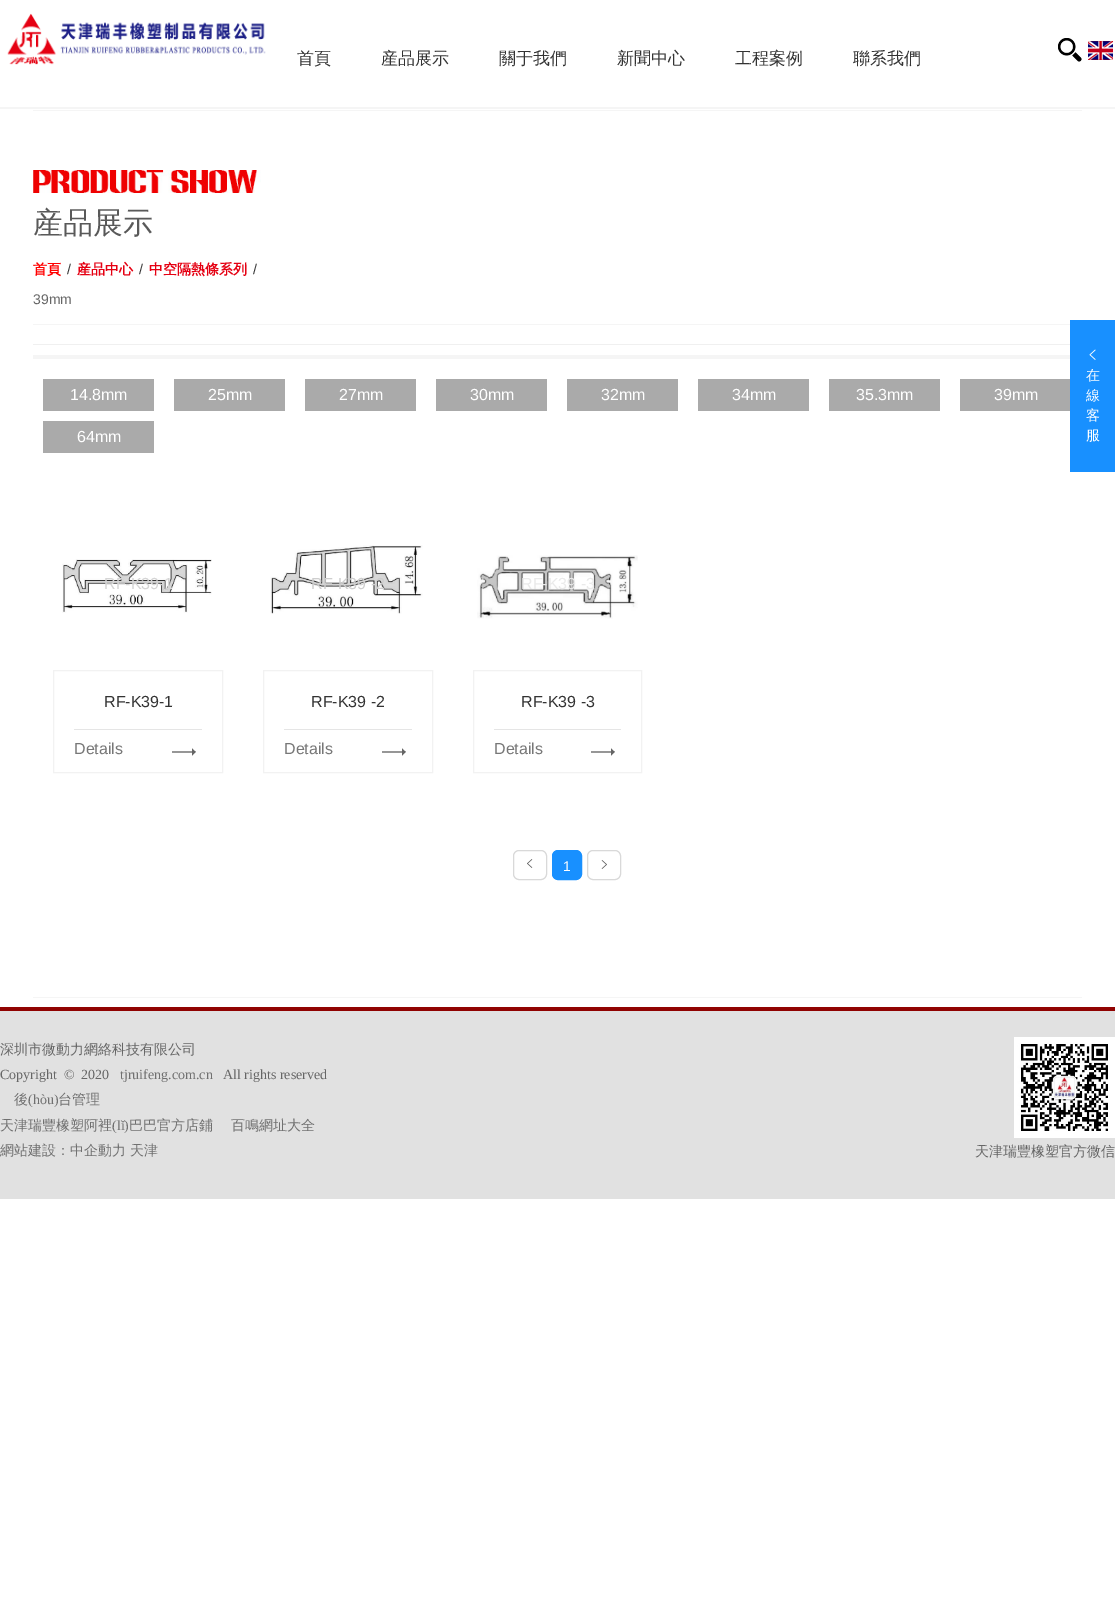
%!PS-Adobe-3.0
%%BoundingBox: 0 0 1115 1600
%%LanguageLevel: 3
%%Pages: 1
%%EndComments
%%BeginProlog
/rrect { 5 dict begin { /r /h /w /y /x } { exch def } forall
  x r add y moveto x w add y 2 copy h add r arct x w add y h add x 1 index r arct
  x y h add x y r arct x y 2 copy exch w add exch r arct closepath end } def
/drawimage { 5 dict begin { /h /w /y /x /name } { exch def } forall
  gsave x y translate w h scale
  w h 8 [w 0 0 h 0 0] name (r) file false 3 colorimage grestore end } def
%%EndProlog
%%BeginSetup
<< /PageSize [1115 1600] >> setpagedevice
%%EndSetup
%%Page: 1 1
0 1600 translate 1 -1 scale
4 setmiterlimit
1 setgray
0 0 1115 1600 rectfill
(images/1.raw) 7 13 259 52 drawimage
(images/2.raw) 1058 38 24 24 drawimage
(images/3.raw) 1088 41 25 19 drawimage
0.961 setgray
0 107 1115 2 rectfill
33 110 1049 1 rectfill
(images/4.raw) 33 170 228 23 drawimage
33 324 1037 1 rectfill
0.941 setgray
33 344 1037 1 rectfill
0.961 setgray
33 355 1037 4 rectfill
0.667 setgray
43 379 111 32 rectfill
174 379 111 32 rectfill
305 379 111 32 rectfill
436 379 111 32 rectfill
567 379 111 32 rectfill
698 379 111 32 rectfill
829 379 111 32 rectfill
960 379 110 32 rectfill
43 421 111 32 rectfill
(images/5.raw) 62 559 150 54 drawimage
0.949 setgray
53.5 670.5 169 102 rectstroke
0.898 setgray
74 729 128 1 rectfill
(images/6.raw) 172 748 24 8 drawimage
(images/7.raw) 270 545 153 69 drawimage
0.949 setgray
263.5 670.5 169 102 rectstroke
0.898 setgray
284 729 128 1 rectfill
(images/6.raw) 382 748 24 8 drawimage
(images/8.raw) 477 555 161 64 drawimage
0.949 setgray
473.5 670.5 168 102 rectstroke
0.898 setgray
494 729 127 1 rectfill
(images/6.raw) 591 748 24 8 drawimage
0.851 setgray
513.5 850.5 33 29 5.5 rrect stroke
(images/9.raw) 527 859 6 9 drawimage
0.094 0.565 1 setrgbcolor
552.5 850.5 29 29 5.5 rrect gsave fill grestore
stroke
0.851 setgray
587.5 850.5 33 29 5.5 rrect stroke
(images/10.raw) 601 860 6 9 drawimage
0.961 setgray
33 997 1049 1 rectfill
0.094 0.565 1 setrgbcolor
1070 320 45 152 rectfill
(images/11.raw) 1089 349 7 11 drawimage
(images/12.raw) 0 1007 1115 192 drawimage
(images/13.raw) 1014 1037 101 101 drawimage
/WenQuanYiZenHei-Medium [17 0 0 -17 0 0] selectfont
0.2 setgray
297 64 moveto (首頁) show
381 64 moveto (産品展示) show
499 64 moveto (關于我們) show
617 64 moveto (新聞中心) show
735 64 moveto (工程案例) show
853 64 moveto (聯系我們) show
/WenQuanYiZenHei-Medium [30 0 0 -30 0 0] selectfont
0.349 setgray
33 233 moveto (産品展示) show
/WenQuanYiZenHei-Bold [14 0 0 -14 0 0] selectfont
1 0 0 setrgbcolor
33 274 moveto (首頁) show
/LiberationSans-Regular [14 0 0 -14 0 0] selectfont
0.2 setgray
67 274 moveto (/) show
/WenQuanYiZenHei-Bold [14 0 0 -14 0 0] selectfont
0.898 0 0.071 setrgbcolor
77 274 moveto (産品中心) show
/LiberationSans-Regular [14 0 0 -14 0 0] selectfont
0.2 setgray
139 274 moveto (/) show
/WenQuanYiZenHei-Bold [14 0 0 -14 0 0] selectfont
0.898 0 0.071 setrgbcolor
149 274 moveto (中空隔熱條系列) show
/LiberationSans-Regular [14 0 0 -14 0 0] selectfont
0.2 setgray
253 274 moveto (/) show
0.4 setgray
33 304 moveto (39mm) show
/LiberationSans-Regular [16 0 0 -16 0 0] selectfont
1 setgray
70 400 moveto (14.8mm) show
208 400 moveto (25mm) show
339 400 moveto (27mm) show
470 400 moveto (30mm) show
601 400 moveto (32mm) show
732 400 moveto (34mm) show
856 400 moveto (35.3mm) show
994 400 moveto (39mm) show
77 442 moveto (64mm) show
0.835 setgray
104 589 moveto (RF-K39-1) show
0.2 setgray
104 707 moveto (RF-K39-1) show
0.467 setgray
74 754 moveto (Details) show
0.808 setgray
311 589 moveto (RF-K39 -2) show
0.2 setgray
311 707 moveto (RF-K39 -2) show
0.467 setgray
284 754 moveto (Details) show
0.918 setgray
521 589 moveto (RF-K39 -3) show
0.2 setgray
521 707 moveto (RF-K39 -3) show
0.467 setgray
494 754 moveto (Details) show
/LiberationSans-Regular [14 0 0 -14 0 0] selectfont
1 setgray
563 871 moveto (1) show
/WenQuanYiZenHei-Medium [14 0 0 -14 0 0] selectfont
1086 380 moveto (在) show
1086 400 moveto (線) show
1086 420 moveto (客) show
1086 440 moveto (服) show
0.4 setgray
0 1054 moveto (深圳市微動力網絡科技有限公司) show
/LiberationSerif-Regular [14 0 0 -14 0 0] selectfont
0 1079 moveto (Copyright  ©  2020) show
0.439 setgray
120 1079 moveto (tjruifeng.com.cn) show
0.4 setgray
223 1079 moveto (All rights reserved) show
/WenQuanYiZenHei-Medium [14 0 0 -14 0 0] selectfont
0.439 setgray
14 1104 moveto (後) show
/LiberationSerif-Regular [14 0 0 -14 0 0] selectfont
28 1104 moveto (\(hòu\)) show
/WenQuanYiZenHei-Medium [14 0 0 -14 0 0] selectfont
58 1104 moveto (台管理) show
0 1130 moveto (天津瑞豐橡塑阿裡) show
/LiberationSerif-Regular [14 0 0 -14 0 0] selectfont
112 1130 moveto (\(lǐ\)) show
/WenQuanYiZenHei-Medium [14 0 0 -14 0 0] selectfont
129 1130 moveto (巴巴官方店鋪) show
231 1130 moveto (百鳴網址大全) show
0 1155 moveto (網站建設：中企動力) show
130 1155 moveto (天津) show
0.4 setgray
975 1156 moveto (天津瑞豐橡塑官方微信) show
showpage
%%EOF
